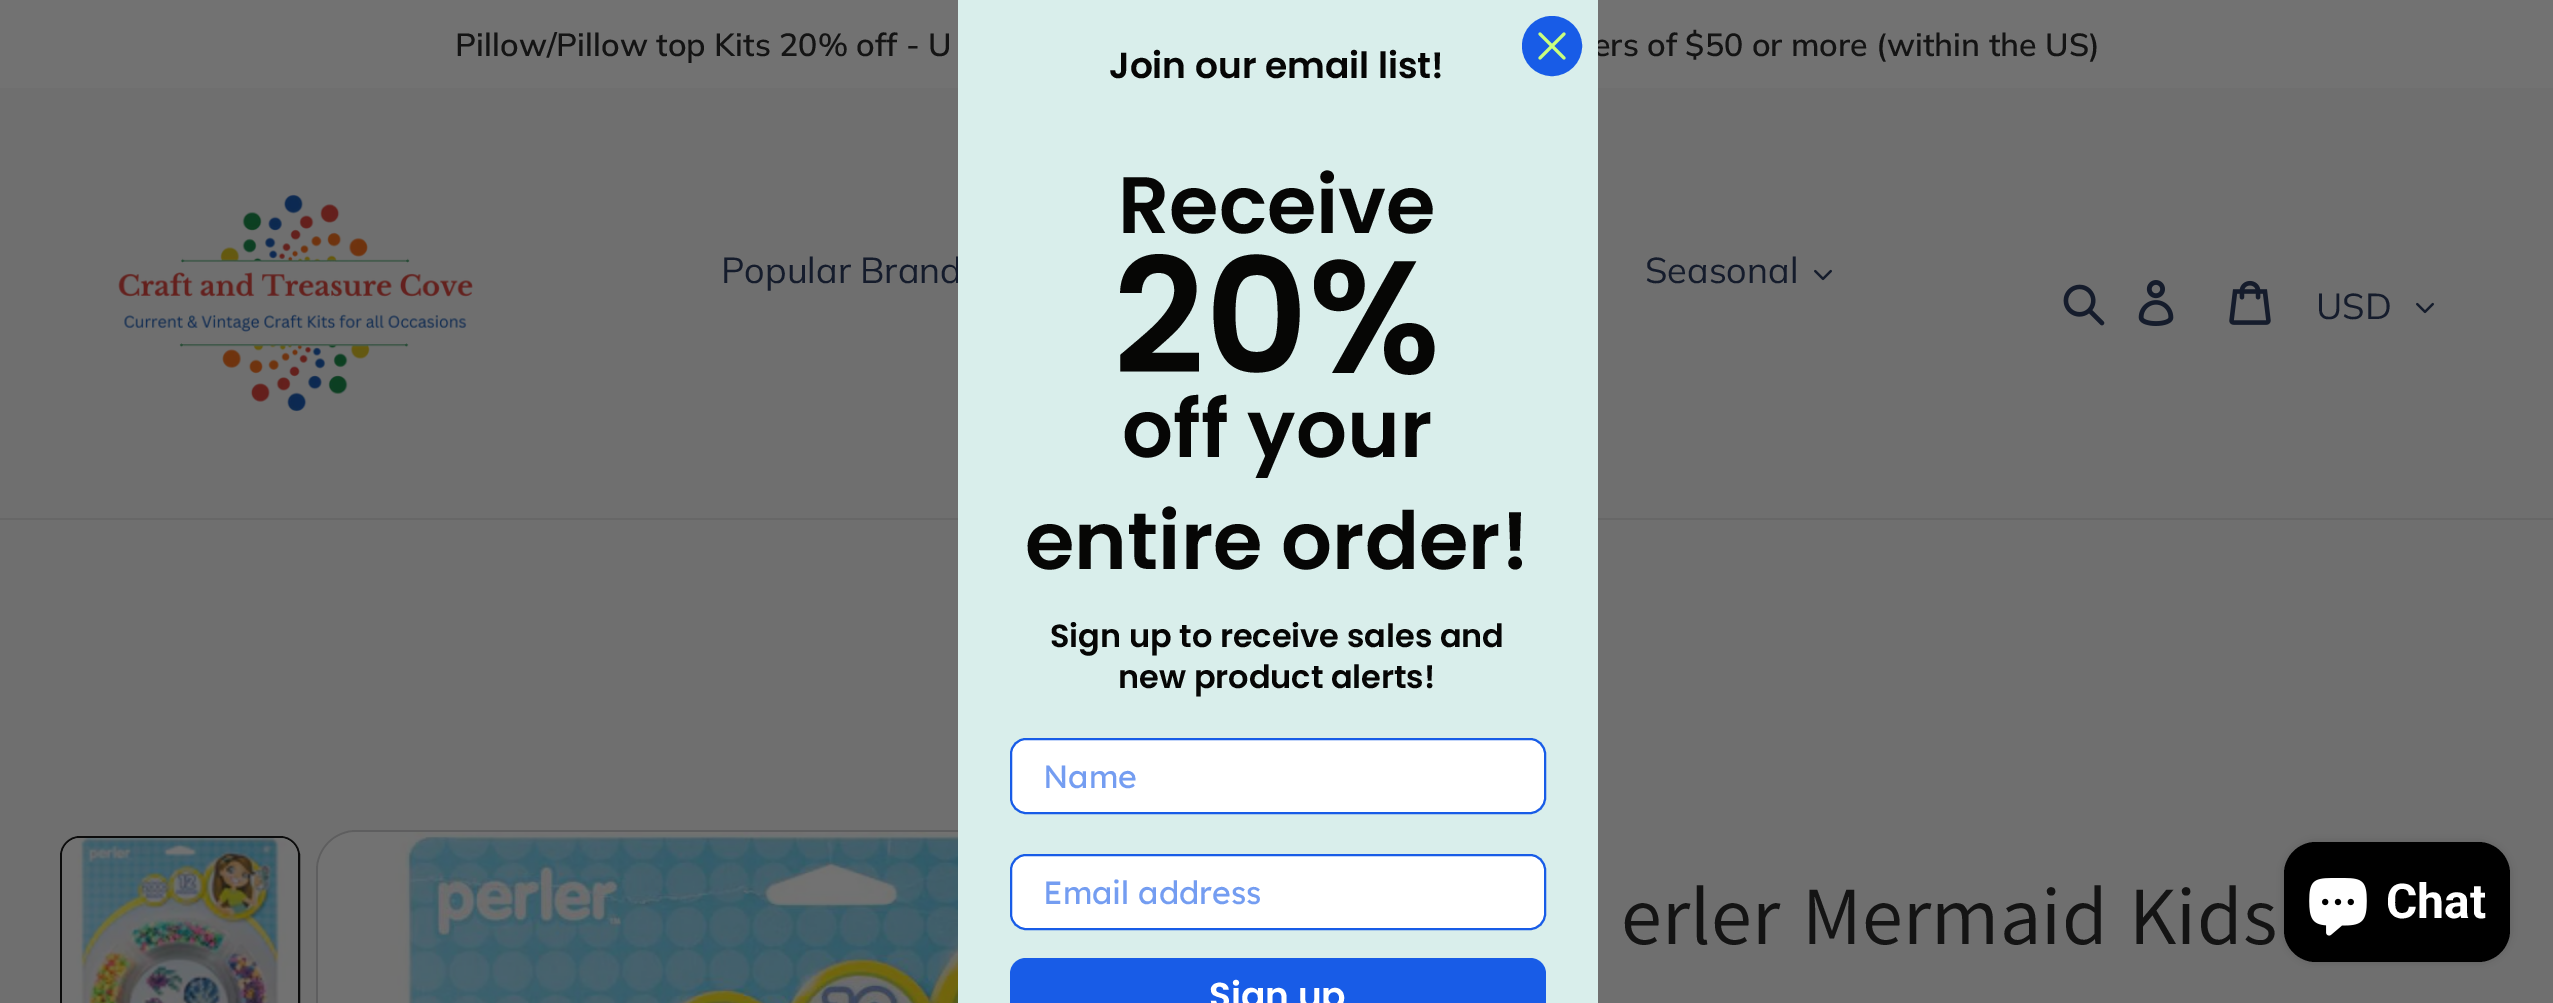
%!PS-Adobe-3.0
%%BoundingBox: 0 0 2553 1003
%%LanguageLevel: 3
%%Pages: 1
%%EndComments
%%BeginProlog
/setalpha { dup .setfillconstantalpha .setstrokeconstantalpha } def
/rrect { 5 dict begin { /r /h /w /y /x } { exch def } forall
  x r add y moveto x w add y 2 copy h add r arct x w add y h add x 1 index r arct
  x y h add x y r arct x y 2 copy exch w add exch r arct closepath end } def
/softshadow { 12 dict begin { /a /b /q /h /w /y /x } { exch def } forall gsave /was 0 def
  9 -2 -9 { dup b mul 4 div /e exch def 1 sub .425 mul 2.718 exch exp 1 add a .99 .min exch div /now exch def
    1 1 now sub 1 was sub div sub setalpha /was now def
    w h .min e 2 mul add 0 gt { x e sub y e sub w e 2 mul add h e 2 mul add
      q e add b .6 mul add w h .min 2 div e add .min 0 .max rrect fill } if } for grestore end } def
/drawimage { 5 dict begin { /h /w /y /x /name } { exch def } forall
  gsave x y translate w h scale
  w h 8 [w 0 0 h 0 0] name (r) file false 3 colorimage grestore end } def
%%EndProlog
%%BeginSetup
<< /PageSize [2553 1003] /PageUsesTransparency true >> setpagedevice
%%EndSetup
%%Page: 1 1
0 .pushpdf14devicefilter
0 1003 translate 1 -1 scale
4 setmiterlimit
0.435 setgray
0 0 2553 1003 rectfill
0.447 setgray
0 0 2553 88 rectfill
0.404 setgray
0 518 2553 2 rectfill
(images/1.raw) 118 194 355 218 drawimage
(images/2.raw) 1814 269 18 12 drawimage
(images/3.raw) 2063 284 42 42 drawimage
(images/4.raw) 2138 280 36 46 drawimage
(images/5.raw) 2229 280 42 45 drawimage
(images/2.raw) 2416 302 18 12 drawimage
0.047 setgray
2 setlinewidth
61 837 238 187 19 rrect stroke
(images/6.raw) 62 838 236 165 drawimage
0.369 0.369 0.373 setrgbcolor
317 831 1028 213 39 rrect stroke
(images/7.raw) 318 832 640 171 drawimage
0 setgray
2284 842 226 120 32 5 0.15 softshadow
2284 842 226 120 32 rrect fill
(images/8.raw) 2309 878 58 58 drawimage
/Muli-SemiBold [32 0 0 -32 0 0] selectfont
0.078 setgray
455 56 moveto (Pillow/Pillow top Kits 20% off - U) show
1593 56 moveto (ers of $50 or more \(within the US\)) show
/Muli-Regular [36 0 0 -36 0 0] selectfont
0.082 0.11 0.173 setrgbcolor
721 283 moveto (Popular Brand) show
1645 283 moveto (Seasonal) show
2316 319 moveto (USD) show
0.851 0.933 0.922 setrgbcolor
958 0 640 1003 rectfill
/Poppins-SemiBold [36 0 0 -36 0 0] selectfont
0.024 0.024 0.02 setrgbcolor
1109 78 moveto (Join our email list!) show
/Poppins-SemiBold [80 0 0 -80 0 0] selectfont
1118 233 moveto (Receive) show
/Poppins-SemiBold [160 0 0 -160 0 0] selectfont
1113 373 moveto (20%) show
/Poppins-SemiBold [80 0 0 -80 0 0] selectfont
1122 457 moveto (off your) show
1025 569 moveto (entire order!) show
/Poppins-SemiBold [32 0 0 -32 0 0] selectfont
1050 647 moveto (Sign up to receive sales and) show
1118 688 moveto (new product alerts!) show
1 setgray
1011 739 534 74 15 rrect gsave fill grestore
0.094 0.361 0.906 setrgbcolor
stroke
/Lexend-Regular [32 0 0 -32 0 0] selectfont
0.455 0.616 0.945 setrgbcolor
1043 788 moveto (Name) show
1 setgray
1011 855 534 74 15 rrect gsave fill grestore
0.094 0.361 0.906 setrgbcolor
stroke
0.455 0.616 0.945 setrgbcolor
1043 904 moveto (Email address) show
0.094 0.361 0.906 setrgbcolor
newpath 1026 958 moveto 1530 958 lineto 1539 958 1546 965 1546 974 curveto 1546 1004 lineto 1010 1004 lineto 1010 974 lineto 1010 965 1017 958 1026 958 curveto closepath fill
/Poppins-SemiBold [36 0 0 -36 0 0] selectfont
1 setgray
1209 1008 moveto (Sign up) show
0.094 0.361 0.906 setrgbcolor
newpath 1552 46 28.5 0 360 arc closepath gsave fill grestore
3 setlinewidth
stroke
0.788 1 0.494 setrgbcolor
1 setlinecap
1 setlinejoin
newpath 1540 34 moveto 1564 58 lineto 1540 58 moveto 1564 34 lineto closepath stroke
/Akatab-Regular [80 0 0 -80 0 0] selectfont
0.078 setgray
1621 944 moveto -5 0 32 0.25 0 (erler Mermaid Kids) awidthshow
/Roboto-Bold [48 0 0 -48 0 0] selectfont
1 setgray
2386 918 moveto (Chat) show
.poppdf14devicefilter showpage
%%EOF
